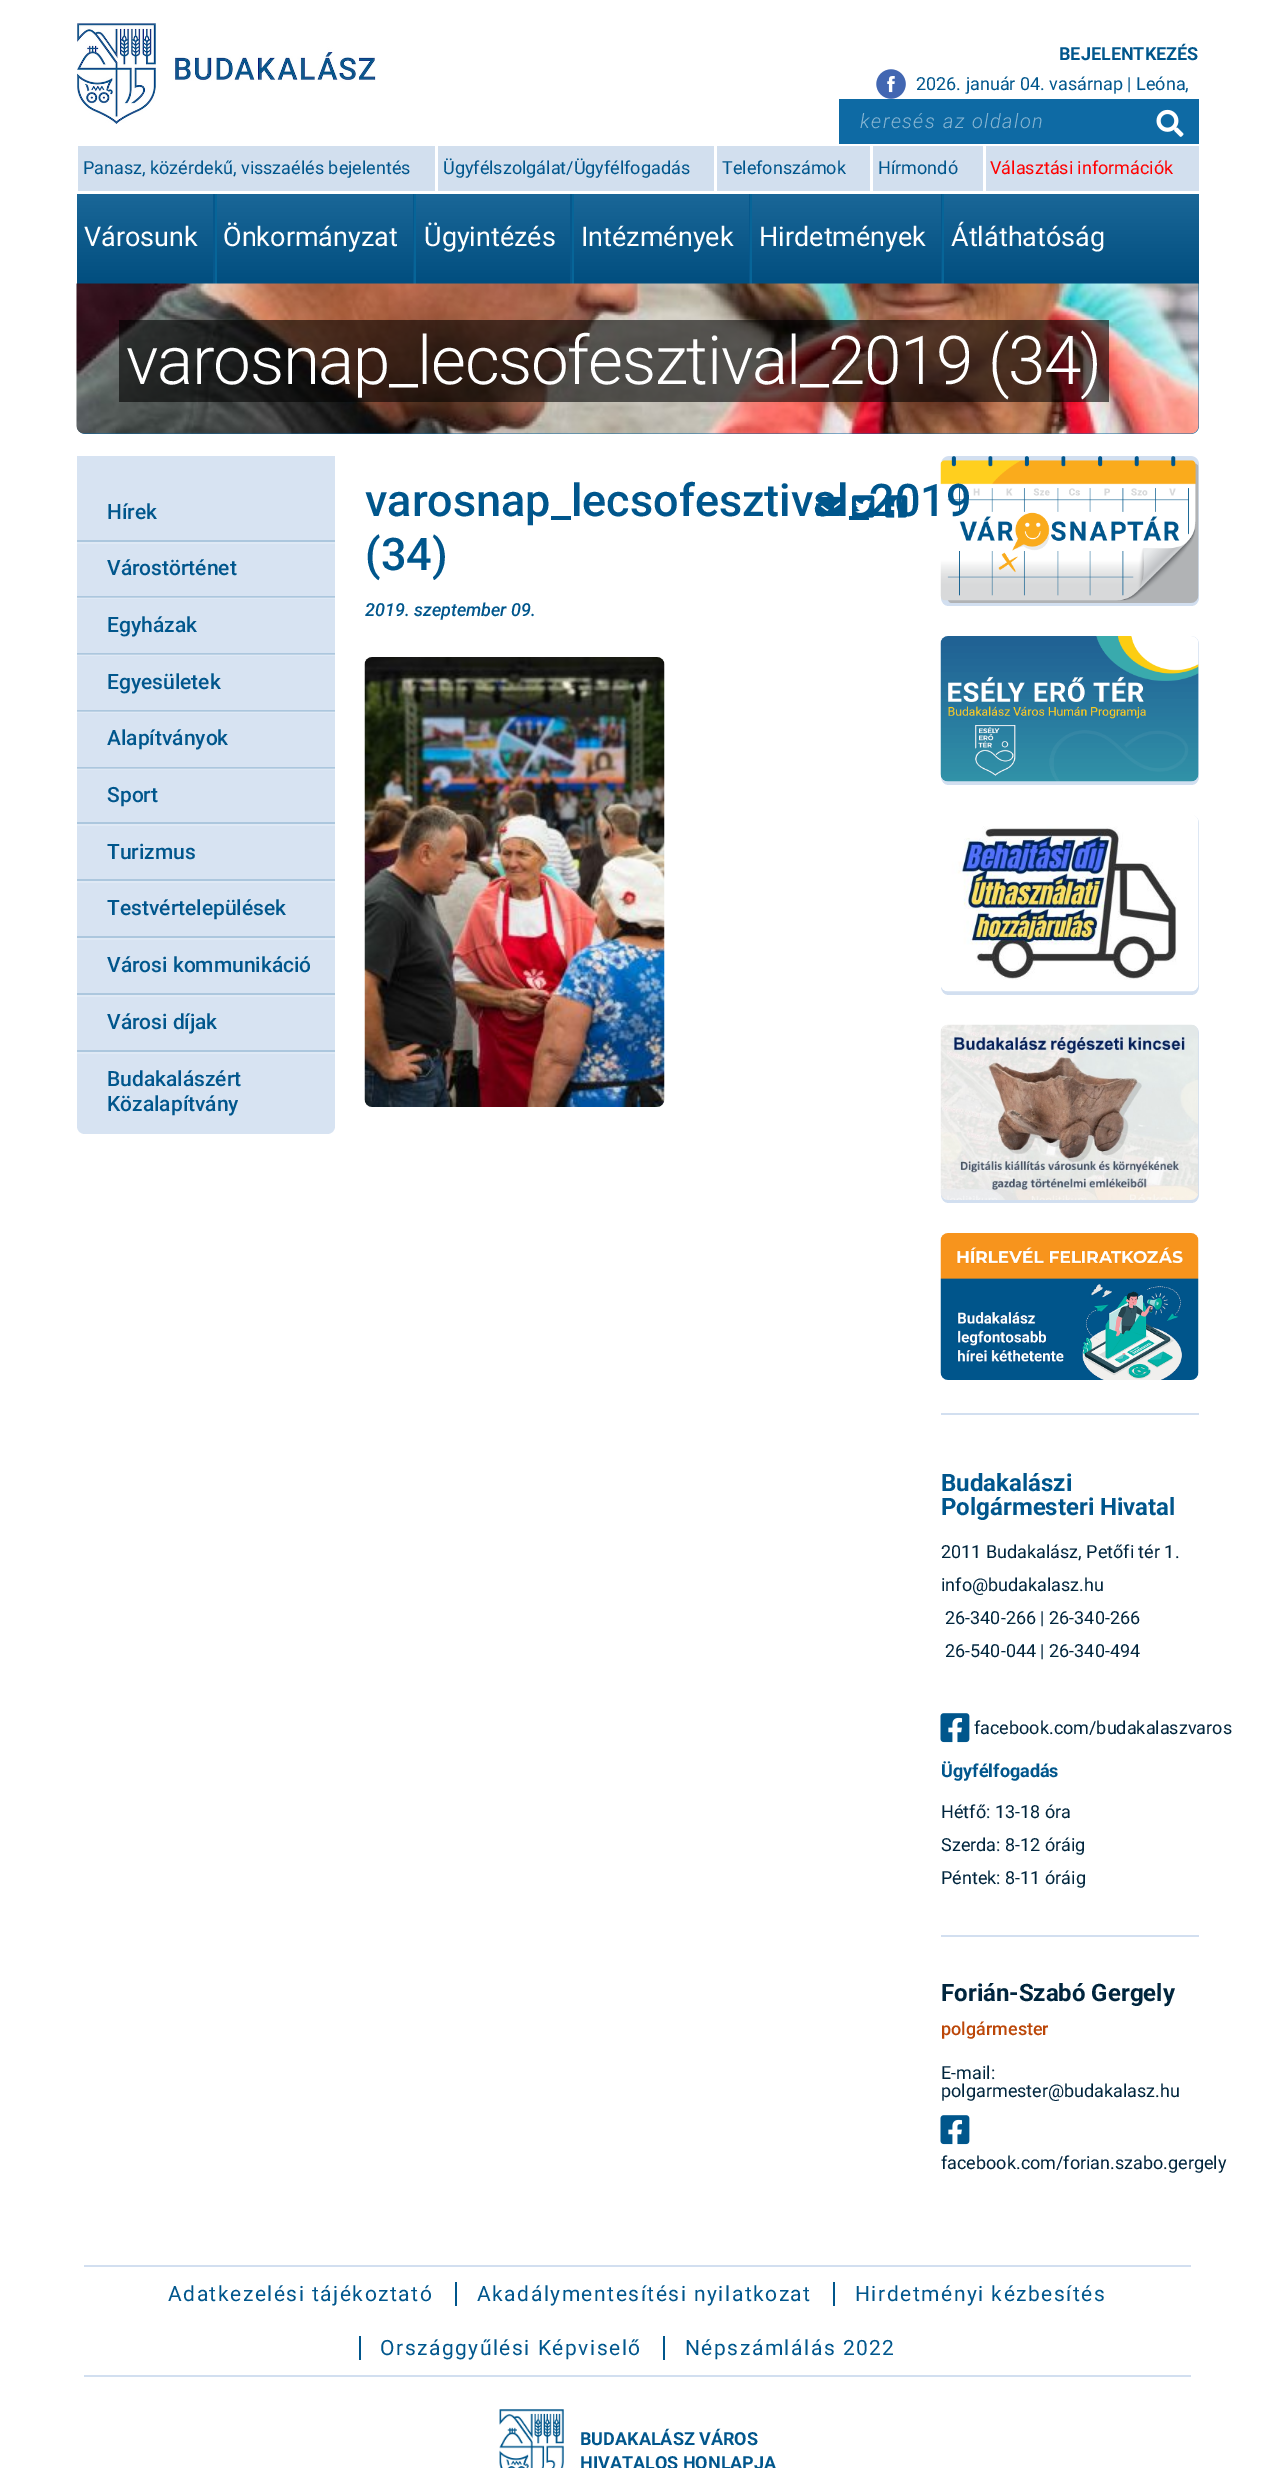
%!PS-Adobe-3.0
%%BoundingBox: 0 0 1275 2468
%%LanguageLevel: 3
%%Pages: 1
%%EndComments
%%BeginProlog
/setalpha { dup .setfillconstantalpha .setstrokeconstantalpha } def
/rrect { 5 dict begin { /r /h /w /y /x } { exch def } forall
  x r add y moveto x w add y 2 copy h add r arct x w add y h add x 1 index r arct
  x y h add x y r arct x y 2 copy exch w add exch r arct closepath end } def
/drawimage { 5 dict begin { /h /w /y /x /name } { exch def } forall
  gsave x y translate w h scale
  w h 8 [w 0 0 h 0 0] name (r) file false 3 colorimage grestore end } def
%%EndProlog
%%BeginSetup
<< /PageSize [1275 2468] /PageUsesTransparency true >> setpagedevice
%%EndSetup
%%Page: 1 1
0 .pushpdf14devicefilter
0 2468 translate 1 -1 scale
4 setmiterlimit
1 setgray
0 0 1275 2468 rectfill
(images/1.raw) 77 23 299 101 drawimage
(images/2.raw) 876 69 30 30 drawimage
0.824 0.875 0.933 setrgbcolor
78 146 357 45 rectfill
438 146 276 45 rectfill
717 146 153 45 rectfill
873 146 110 45 rectfill
986 146 213 45 rectfill
0.055 0.416 0.643 setrgbcolor
839 99 360 45 rectfill
(images/3.raw) 1156 109 28 28 drawimage
gsave newpath 77 194 moveto 1199 194 lineto 1199 284 lineto 77 284 lineto closepath clip newpath
<< /ShadingType 2 /ColorSpace /DeviceRGB /Coords [638 193 638 284] /Extend [true true] /Function << /FunctionType 2 /Domain [0 1] /C0 [0.102 0.404 0.596] /C1 [0.004 0.306 0.498] /N 1 >> >> shfill grestore
0.027 0.345 0.549 setrgbcolor
213 194 2 90 rectfill
413 194 1 90 rectfill
0.027 0.396 0.596 setrgbcolor
215 194 2 90 rectfill
0.027 0.345 0.549 setrgbcolor
570 194 2 90 rectfill
0.027 0.396 0.596 setrgbcolor
414 194 2 90 rectfill
0.027 0.345 0.549 setrgbcolor
749 194 1 90 rectfill
0.027 0.396 0.596 setrgbcolor
572 194 2 90 rectfill
0.027 0.345 0.549 setrgbcolor
941 194 1 90 rectfill
0.027 0.396 0.596 setrgbcolor
750 194 2 90 rectfill
942 194 2 90 rectfill
0.055 0.416 0.643 setrgbcolor
newpath 77 284 moveto 1199 284 lineto 1199 426 lineto 1199 430.5 1195.5 434 1191 434 curveto 85 434 lineto 80.5 434 77 430.5 77 426 curveto closepath fill
(images/4.raw) 76 283 1123 151 drawimage
0.6 setalpha
0 setgray
119 320 990 82 rectfill
1 setalpha
0.843 0.89 0.949 setrgbcolor
newpath 77 486 moveto 335 486 lineto 335 1126 lineto 335 1130.5 331.5 1134 327 1134 curveto 85 1134 lineto 80.5 1134 77 1130.5 77 1126 curveto closepath fill
0.875 0.914 0.961 setrgbcolor
77 769 258 1 rectfill
77 712 258 1 rectfill
77 655 258 1 rectfill
77 598 258 1 rectfill
0.843 0.89 0.949 setrgbcolor
77 456 258 30 rectfill
0.675 0.78 0.871 setrgbcolor
77 540 258 2 rectfill
0.875 0.914 0.961 setrgbcolor
77 542 258 2 rectfill
0.675 0.78 0.871 setrgbcolor
77 596 258 1 rectfill
0.741 0.824 0.898 setrgbcolor
77 597 258 1 rectfill
0.675 0.78 0.871 setrgbcolor
77 653 258 1 rectfill
0.741 0.824 0.898 setrgbcolor
77 654 258 1 rectfill
0.675 0.78 0.871 setrgbcolor
77 710 258 1 rectfill
0.741 0.824 0.898 setrgbcolor
77 711 258 1 rectfill
0.675 0.78 0.871 setrgbcolor
77 767 258 1 rectfill
0.741 0.824 0.898 setrgbcolor
77 768 258 1 rectfill
0.675 0.78 0.871 setrgbcolor
77 822 258 2 rectfill
0.875 0.914 0.961 setrgbcolor
77 824 258 2 rectfill
0.675 0.78 0.871 setrgbcolor
77 879 258 2 rectfill
0.875 0.914 0.961 setrgbcolor
77 881 258 2 rectfill
0.675 0.78 0.871 setrgbcolor
77 936 258 2 rectfill
0.875 0.914 0.961 setrgbcolor
77 938 258 2 rectfill
0.675 0.78 0.871 setrgbcolor
77 993 258 2 rectfill
0.875 0.914 0.961 setrgbcolor
77 995 258 2 rectfill
0.675 0.78 0.871 setrgbcolor
77 1050 258 2 rectfill
0.875 0.914 0.961 setrgbcolor
77 1052 258 2 rectfill
(images/8.raw) 364 657 301 450 drawimage
0.824 0.875 0.941 setrgbcolor
941 456 258 150 8 rrect fill
(images/9.raw) 940 456 259 147 drawimage
941 636 258 149 8 rrect fill
(images/10.raw) 940 636 259 146 drawimage
941 815 258 180 8 rrect fill
(images/11.raw) 941 815 258 177 drawimage
941 1025 258 178 8 rrect fill
(images/12.raw) 940 1024 259 176 drawimage
(images/13.raw) 940 1233 259 147 drawimage
941 1413 258 2 rectfill
(images/14.raw) 940 1713 30 30 drawimage
941 1935 258 2 rectfill
(images/14.raw) 940 2115 30 30 drawimage
84 2265 1107 2 rectfill
0 0.337 0.549 setrgbcolor
455 2282 2 24 rectfill
833 2282 2 24 rectfill
359 2336 2 24 rectfill
663 2336 2 24 rectfill
0.824 0.875 0.941 setrgbcolor
84 2375 1107 2 rectfill
(images/15.raw) 499 2409 65 59 drawimage
/Roboto-Bold [18 0 0 -18 0 0] selectfont
0 0.337 0.549 setrgbcolor
1059 60 moveto (BEJELENTKEZÉS) show
/Roboto-Regular [18 0 0 -18 0 0] selectfont
916 90 moveto (2026. január 04. vasárnap | Leóna,) show
83 174 moveto (Panasz, közérdekű, visszaélés bejelentés) show
443 174 moveto (Ügyfélszolgálat/Ügyfélfogadás) show
722 174 moveto (Telefonszámok) show
878 174 moveto (Hírmondó) show
1 0 0 setrgbcolor
990 174 moveto (Választási információk) show
/Roboto-LightItalic [20 0 0 -20 0 0] selectfont
0.529 0.71 0.824 setrgbcolor
860 128 moveto 1.5 0 (keresés az oldalon) ashow
/Roboto-Regular [27 0 0 -27 0 0] selectfont
1 setgray
84 246 moveto (Városunk) show
223 246 moveto (Önkormányzat) show
424 246 moveto (Ügyintézés) show
581 246 moveto (Intézmények) show
759 246 moveto (Hirdetmények) show
951 246 moveto (Átláthatóság) show
/Roboto-Light [67.5 0 0 -67.5 0 0] selectfont
126 384 moveto -1.35 0 (varosnap_lecsofesztival_2019 \(34\)) ashow
/Roboto-Medium [21 0 0 -21 0 0] selectfont
0 0.337 0.549 setrgbcolor
107 519 moveto (Hírek) show
107 575 moveto (Várostörténet) show
107 632 moveto (Egyházak) show
107 689 moveto (Egyesületek) show
107 745 moveto (Alapítványok) show
107 802 moveto (Sport) show
107 859 moveto (Turizmus) show
107 915 moveto (Testvértelepülések) show
107 972 moveto (Városi kommunikáció) show
107 1029 moveto (Városi díjak) show
107 1086 moveto (Budakalászért) show
107 1111 moveto (Közalapítvány) show
/Roboto-Medium [45 0 0 -45 0 0] selectfont
365 516 moveto (varosnap_lecsofesztival_2019) show
365 570 moveto (\(34\)) show
(images/5.raw) 816 496 25 20 drawimage
(images/6.raw) 852 495 23 23 drawimage
(images/7.raw) 885 495 23 23 drawimage
/Roboto-MediumItalic [18 0 0 -18 0 0] selectfont
365 616 moveto (2019. szeptember 09.) show
/Roboto-Bold [24 0 0 -24 0 0] selectfont
941 1491 moveto (Budakalászi) show
941 1515 moveto (Polgármesteri Hivatal) show
/Roboto-Regular [18 0 0 -18 0 0] selectfont
0 0.145 0.239 setrgbcolor
941 1558 moveto (2011 Budakalász, Petőfi tér 1.) show
941 1591 moveto (info@budakalasz.hu) show
945 1624 moveto (26-340-266 | 26-340-266) show
945 1657 moveto (26-540-044 | 26-340-494) show
974 1734 moveto (facebook.com/budakalaszvaros) show
/Roboto-Bold [18 0 0 -18 0 0] selectfont
0 0.337 0.549 setrgbcolor
941 1777 moveto (Ügyfélfogadás) show
/Roboto-Regular [18 0 0 -18 0 0] selectfont
0 0.145 0.239 setrgbcolor
941 1818 moveto (Hétfő: 13-18 óra) show
941 1851 moveto (Szerda: 8-12 óráig) show
941 1884 moveto (Péntek: 8-11 óráig) show
/Roboto-Bold [24 0 0 -24 0 0] selectfont
941 2001 moveto (Forián-Szabó Gergely) show
/Roboto-Medium [18 0 0 -18 0 0] selectfont
0.733 0.275 0.027 setrgbcolor
941 2035 moveto (polgármester) show
/Roboto-Regular [18 0 0 -18 0 0] selectfont
0 0.145 0.239 setrgbcolor
941 2079 moveto (E-mail:) show
941 2097 moveto (polgarmester@budakalasz.hu) show
941 2169 moveto (facebook.com/forian.szabo.gergely) show
/Roboto-Regular [21 0 0 -21 0 0] selectfont
0 0.337 0.549 setrgbcolor
168 2301 moveto 1.5 0 (Adatkezelési tájékoztató) ashow
477 2301 moveto 1.5 0 (Akadálymentesítési nyilatkozat) ashow
855 2301 moveto 1.5 0 (Hirdetményi kézbesítés) ashow
380 2355 moveto 1.5 0 (Országgyűlési Képviselő) ashow
685 2355 moveto 1.5 0 (Népszámlálás 2022) ashow
/Roboto-Bold [18 0 0 -18 0 0] selectfont
580 2445 moveto (BUDAKALÁSZ VÁROS) show
580 2469 moveto (HIVATALOS HONLAPJA) show
.poppdf14devicefilter showpage
%%EOF
